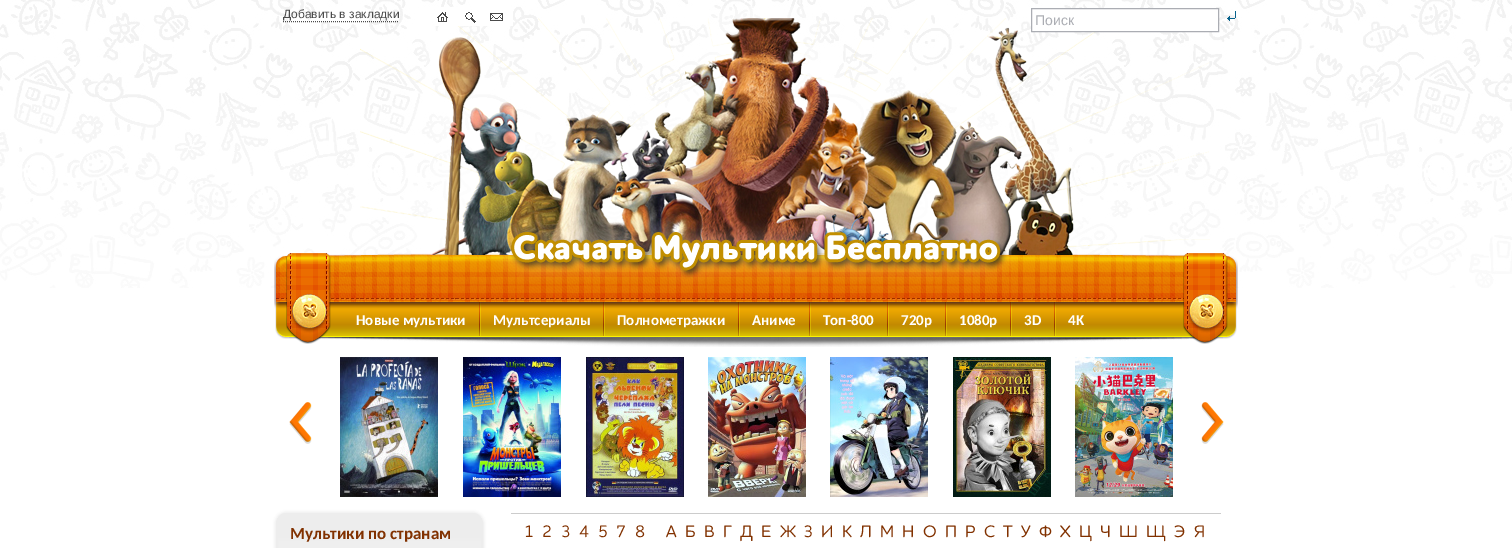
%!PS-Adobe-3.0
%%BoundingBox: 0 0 1512 548
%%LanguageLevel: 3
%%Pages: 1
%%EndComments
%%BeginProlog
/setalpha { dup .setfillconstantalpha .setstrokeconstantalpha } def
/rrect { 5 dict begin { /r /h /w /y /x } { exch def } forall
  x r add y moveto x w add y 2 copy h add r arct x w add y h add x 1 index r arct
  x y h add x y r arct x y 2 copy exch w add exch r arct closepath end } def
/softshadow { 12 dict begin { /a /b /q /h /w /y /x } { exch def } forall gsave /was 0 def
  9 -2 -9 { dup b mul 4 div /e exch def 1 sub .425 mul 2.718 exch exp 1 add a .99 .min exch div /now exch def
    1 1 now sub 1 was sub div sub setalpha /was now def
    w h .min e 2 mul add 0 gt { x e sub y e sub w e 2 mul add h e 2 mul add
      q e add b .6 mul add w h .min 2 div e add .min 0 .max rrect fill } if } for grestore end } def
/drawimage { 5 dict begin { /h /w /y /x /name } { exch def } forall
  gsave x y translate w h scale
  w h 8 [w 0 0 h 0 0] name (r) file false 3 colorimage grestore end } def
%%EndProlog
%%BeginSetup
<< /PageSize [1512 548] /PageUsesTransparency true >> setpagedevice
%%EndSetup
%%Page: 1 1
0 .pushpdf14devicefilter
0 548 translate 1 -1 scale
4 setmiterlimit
1 setgray
0 0 1512 548 rectfill
(images/1.raw) 0 0 1512 288 drawimage
(images/6.raw) 274 6 964 341 drawimage
0.294 setgray
[1 1] 0 setdash
newpath 283 21.5 moveto 399 21.5 lineto stroke
1 setgray
435 7 22 19 rectfill
(images/2.raw) 437 12 11 10 drawimage
457 12 28 14 rectfill
(images/3.raw) 465 12 11 11 drawimage
485 13 28 13 rectfill
(images/4.raw) 490 13 13 8 drawimage
newpath 1031.5 8.5 moveto 1218.5 8.5 lineto 1218.5 31.5 lineto 1031.5 31.5 lineto closepath gsave fill grestore
0.671 0.678 0.702 setrgbcolor
[] 0 setdash
stroke
(images/5.raw) 1227 11 9 10 drawimage
(images/7.raw) 479 302 2 34 drawimage
(images/7.raw) 603 302 2 34 drawimage
(images/7.raw) 738 302 2 34 drawimage
(images/7.raw) 809 302 2 34 drawimage
(images/7.raw) 887 302 2 34 drawimage
(images/7.raw) 945 302 2 34 drawimage
(images/7.raw) 1010 302 2 34 drawimage
(images/7.raw) 1054 302 2 34 drawimage
(images/8.raw) 289 402 23 42 drawimage
(images/9.raw) 340 357 98 140 drawimage
(images/10.raw) 463 357 98 140 drawimage
(images/11.raw) 586 357 98 140 drawimage
(images/12.raw) 708 357 98 140 drawimage
(images/13.raw) 830 357 98 140 drawimage
(images/14.raw) 953 357 98 140 drawimage
(images/15.raw) 1075 357 98 140 drawimage
(images/16.raw) 1201 402 23 42 drawimage
0.929 setgray
275 512 209 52 11 1.5 1 softshadow
(images/17.raw) 276 515 207 33 drawimage
2 setlinewidth
277 514 205 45 9 rrect stroke
0.8 setgray
511 513 710 1 rectfill
/LiberationSans-Regular [12 0 0 -12 0 0] selectfont
0.294 setgray
283 18 moveto (Добавить в закладки) show
/LiberationSans-Regular [14 0 0 -14 0 0] selectfont
0.671 0.678 0.702 setrgbcolor
1035 25 moveto (Поиск) show
/Carlito-Bold [15 0 0 -15 0 0] selectfont
1 setgray
356 325 moveto (Новые мультики) show
493 325 moveto (Мультсериалы) show
617 325 moveto (Полнометражки) show
752 325 moveto (Аниме) show
823 325 moveto (Топ-800) show
901 325 moveto (720p) show
959 325 moveto (1080p) show
1024 325 moveto (3D) show
1068 325 moveto (4K) show
/Carlito-Bold [17 0 0 -17 0 0] selectfont
0.506 0.192 0 setrgbcolor
290 539 moveto (Мультики по странам) show
/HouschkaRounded-Medium [15 0 0 -15 0 0] selectfont
524 537 moveto 2 0 (1 2 3 4 5 7 8) ashow
666 537 moveto 2 0 (А Б В Г Д Е Ж З И К Л М Н О П Р С Т У Ф Х Ц Ч Ш Щ Э Я) ashow
.poppdf14devicefilter showpage
%%EOF
